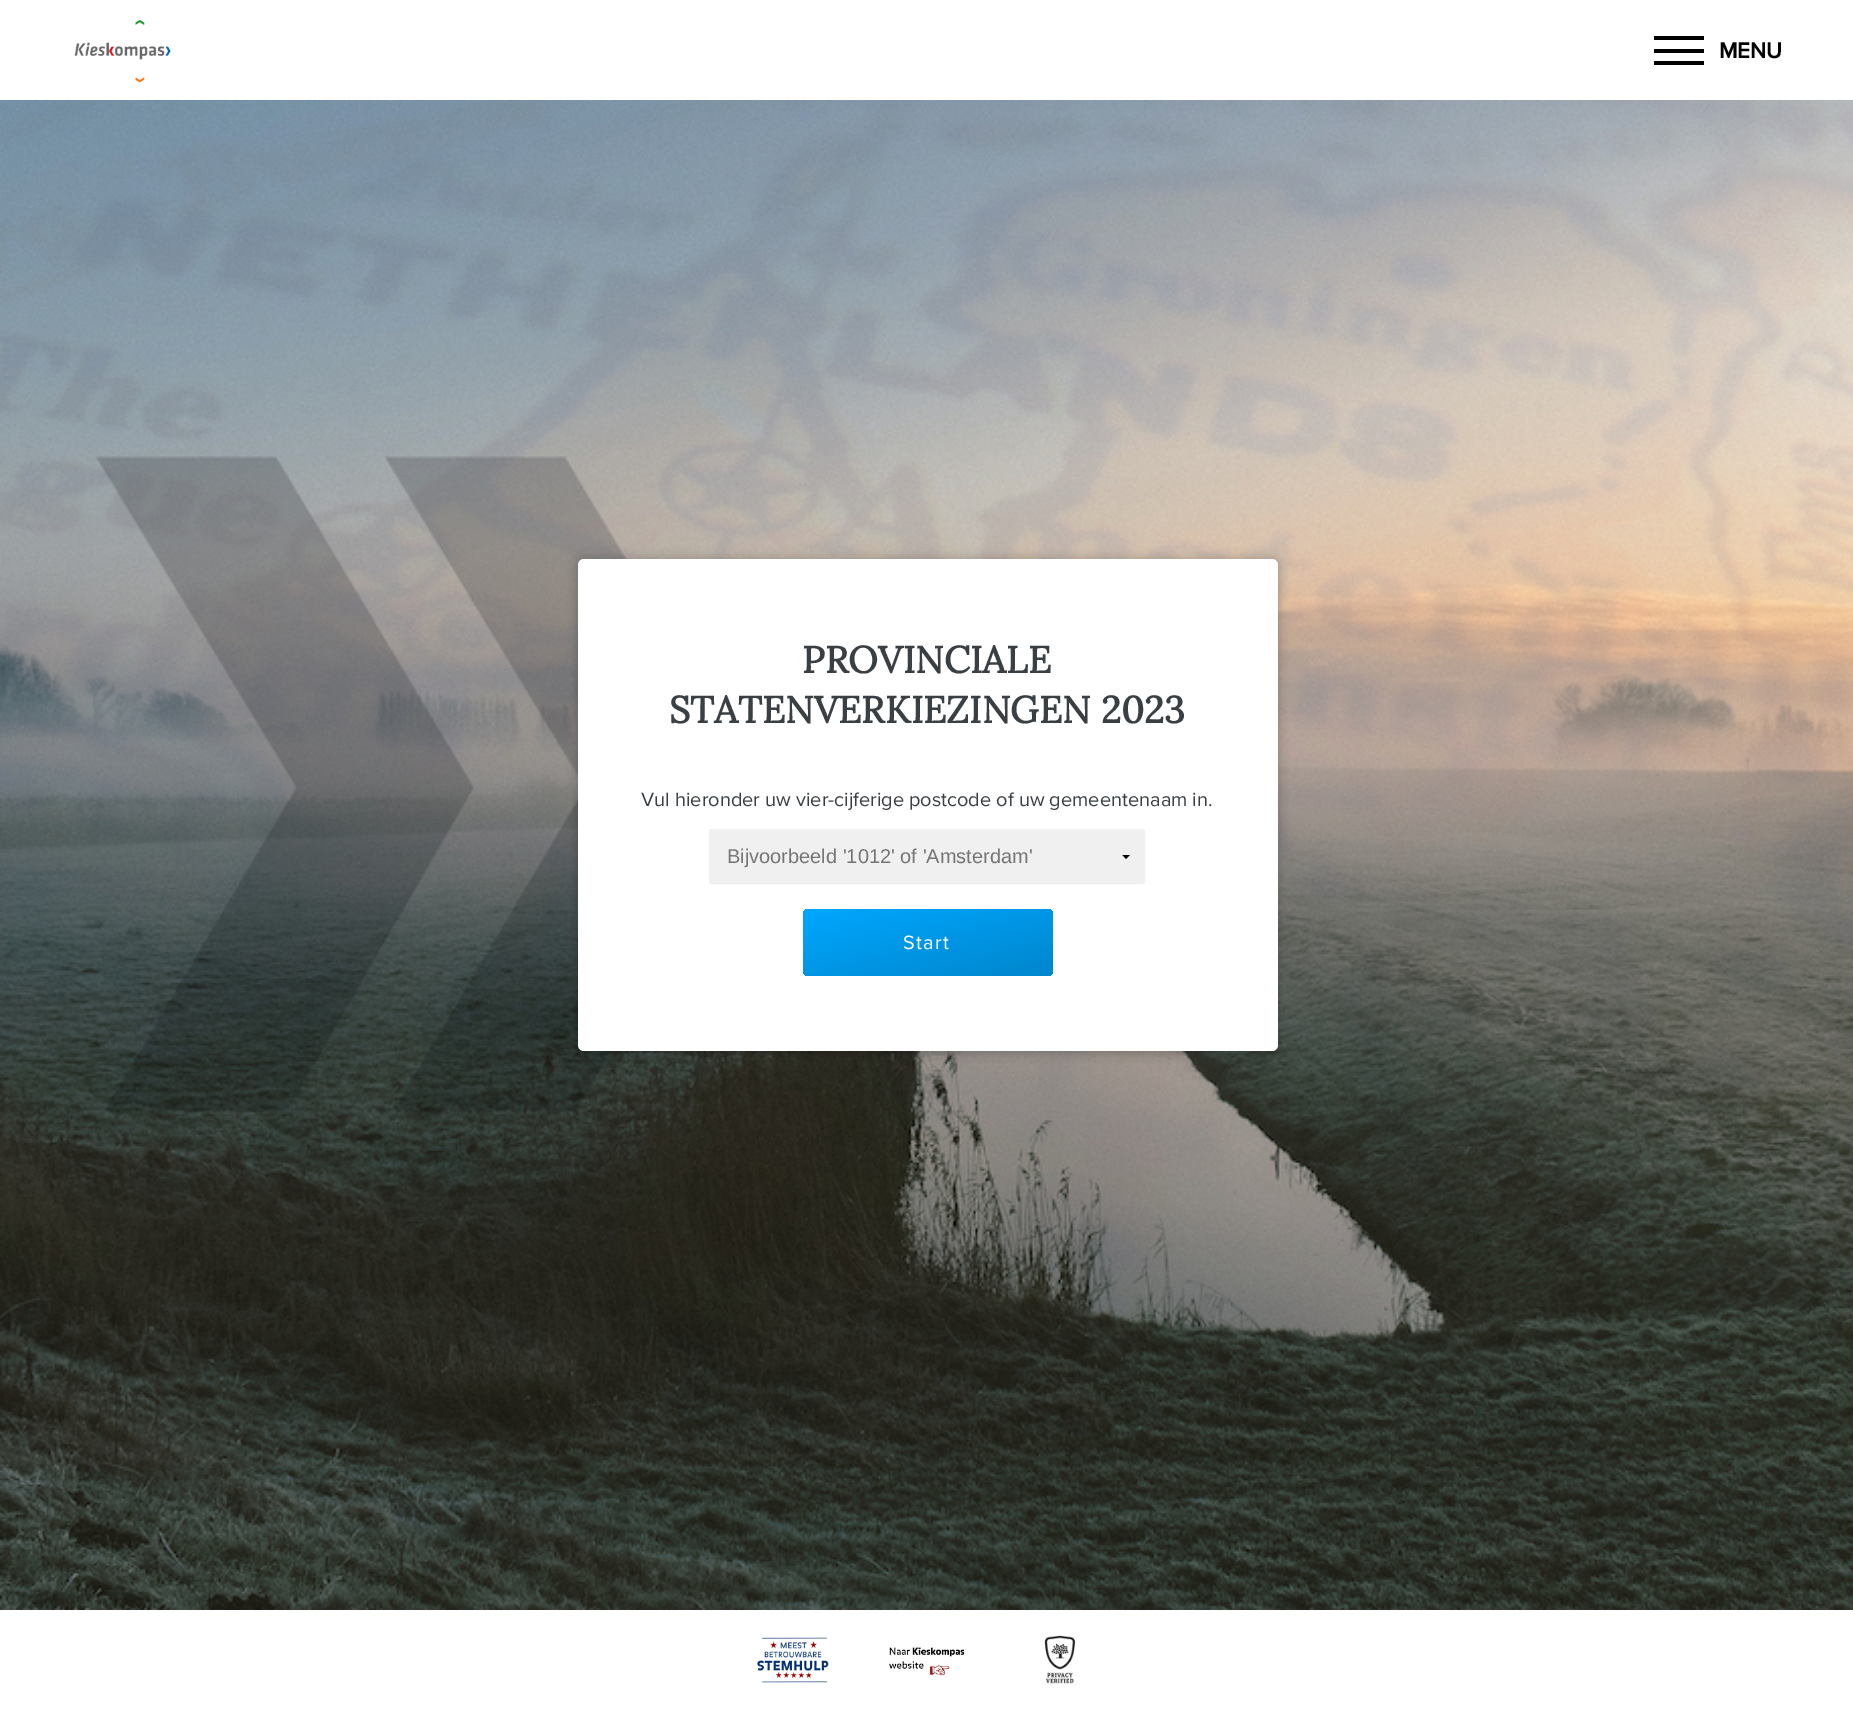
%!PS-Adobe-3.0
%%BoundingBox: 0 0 1853 1710
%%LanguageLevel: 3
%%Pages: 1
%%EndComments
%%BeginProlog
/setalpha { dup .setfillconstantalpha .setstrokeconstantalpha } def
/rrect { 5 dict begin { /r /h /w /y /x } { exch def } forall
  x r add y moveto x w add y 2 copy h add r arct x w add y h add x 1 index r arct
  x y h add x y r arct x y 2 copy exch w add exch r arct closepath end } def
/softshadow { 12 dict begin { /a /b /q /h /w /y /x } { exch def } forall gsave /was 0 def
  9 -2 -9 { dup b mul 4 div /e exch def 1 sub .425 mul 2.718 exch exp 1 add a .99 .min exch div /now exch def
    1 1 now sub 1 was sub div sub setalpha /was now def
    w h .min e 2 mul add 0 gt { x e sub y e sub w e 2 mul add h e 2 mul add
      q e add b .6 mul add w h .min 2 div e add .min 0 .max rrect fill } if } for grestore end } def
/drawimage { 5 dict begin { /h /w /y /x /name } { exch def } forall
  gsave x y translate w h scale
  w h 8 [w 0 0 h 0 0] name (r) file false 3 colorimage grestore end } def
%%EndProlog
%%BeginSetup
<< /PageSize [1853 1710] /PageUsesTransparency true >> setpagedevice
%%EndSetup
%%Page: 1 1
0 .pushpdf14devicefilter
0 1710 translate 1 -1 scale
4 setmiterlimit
1 setgray
0 0 1853 1710 rectfill
(images/1.raw) 74 19 97 64 drawimage
0 setgray
1654 49 50 4 rectfill
1654 36 50 4 rectfill
1654 61 50 4 rectfill
(images/2.raw) 0 100 1853 1510 drawimage
575 556 705 498 9 4.5 0.1 softshadow
578 561 700 493 6 4.5 0.1 softshadow
1 setgray
578 559 700 492 6 rrect fill
0.941 setgray
710.5 830.5 433 52 1 rrect gsave fill grestore
3 setlinewidth
stroke
0 setgray
newpath 1130 855 moveto 1126 859 lineto 1122.5 855 lineto closepath fill
gsave 803 909 250 67 6 rrect clip newpath
<< /ShadingType 2 /ColorSpace /DeviceRGB /Coords [911 880 944 1005] /Extend [true true] /Function << /FunctionType 2 /Domain [0 1] /C0 [0.004 0.655 1] /C1 [0 0.525 0.804] /N 1 >> >> shfill grestore
(images/3.raw) 757 1637 72 46 drawimage
(images/4.raw) 889 1647 76 29 drawimage
(images/5.raw) 1044 1635 32 49 drawimage
/ProximaNova-Bold [22.5 0 0 -22.5 0 0] selectfont
1719 58 moveto (MENU) show
/Lora-Bold [37.5 0 0 -37.5 0 0] selectfont
0.227 0.247 0.263 setrgbcolor
802 673 moveto (PROVINCIALE) show
669 723 moveto (STATENVERKIEZINGEN 2023) show
/ProximaNova-Regular [20 0 0 -20 0 0] selectfont
641 806 moveto (Vul hieronder uw vier-cijferige postcode of uw gemeentenaam in.) show
/LiberationSans-Regular [20 0 0 -20 0 0] selectfont
0.459 setgray
727 863 moveto (Bijvoorbeeld '1012' of 'Amsterdam') show
/ProximaNova-Regular [20 0 0 -20 0 0] selectfont
1 setgray
903 949 moveto 1.25 0 (Start) ashow
.poppdf14devicefilter showpage
%%EOF
